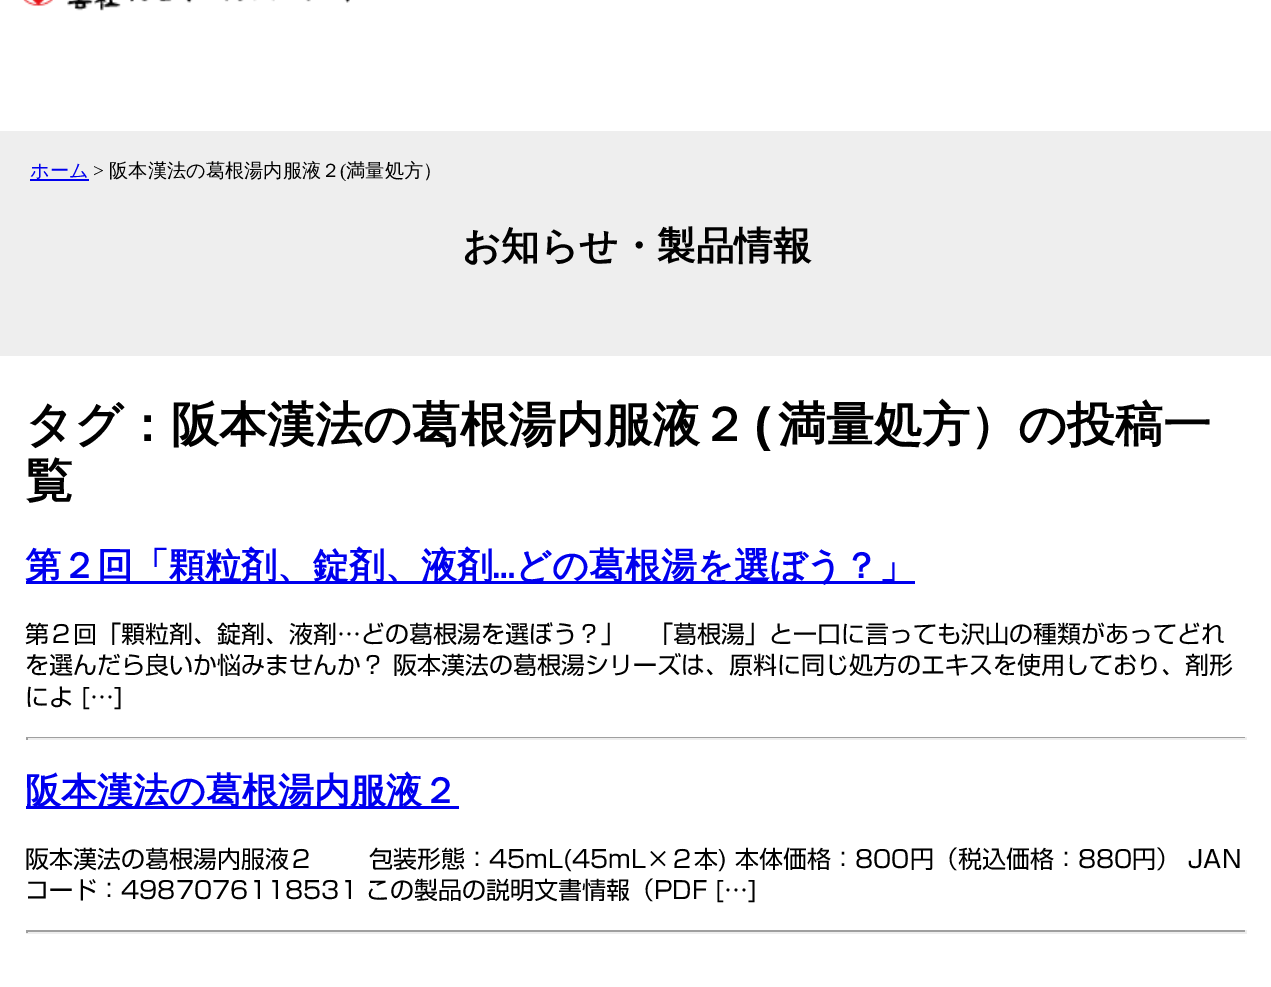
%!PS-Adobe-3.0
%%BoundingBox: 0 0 1271 987
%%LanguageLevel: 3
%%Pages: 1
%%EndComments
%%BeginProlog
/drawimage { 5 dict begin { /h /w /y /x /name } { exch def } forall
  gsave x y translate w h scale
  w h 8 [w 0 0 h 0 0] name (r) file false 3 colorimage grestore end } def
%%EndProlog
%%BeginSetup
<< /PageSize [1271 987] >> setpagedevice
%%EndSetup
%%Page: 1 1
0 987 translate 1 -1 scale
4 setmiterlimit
1 setgray
0 0 1271 987 rectfill
(images/1.raw) 23 0 327 11 drawimage
0.933 setgray
0 131 1271 225 rectfill
0 0 0.933 setrgbcolor
30 179 59 2 rectfill
26 581 889 3 rectfill
0.624 setgray
26 737 1221 1 rectfill
0.933 setgray
1245 737 2 3 rectfill
26 738 1221 2 rectfill
0.624 setgray
26 737 2 3 rectfill
0 0 0.933 setrgbcolor
26 806 433 3 rectfill
0.624 setgray
26 930 1221 2 rectfill
0.933 setgray
1245 930 2 3 rectfill
26 932 1221 2 rectfill
0.624 setgray
26 930 2 3 rectfill
/WenQuanYiZenHei-Medium [19.25 0 0 -19.25 0 0] selectfont
0 0 0.933 setrgbcolor
30 177 moveto (ホーム) show
/LiberationSerif-Regular [19.25 0 0 -19.25 0 0] selectfont
0 setgray
93 177 moveto (>) show
/WenQuanYiZenHei-Medium [19.25 0 0 -19.25 0 0] selectfont
109 177 moveto (阪本漢法の葛根湯内服液２) show
/LiberationSerif-Regular [19.25 0 0 -19.25 0 0] selectfont
340 177 moveto (\() show
/WenQuanYiZenHei-Medium [19.25 0 0 -19.25 0 0] selectfont
346 177 moveto (満量処方）) show
/WenQuanYiZenHei-Bold [38.5 0 0 -38.5 0 0] selectfont
462 259 moveto (お知らせ・製品情報) show
/WenQuanYiZenHei-Bold [48 0 0 -48 0 0] selectfont
25 441 moveto (タグ：阪本漢法の葛根湯内服液２) show
/LiberationMono-Bold [48 0 0 -48 0 0] selectfont
749 441 moveto (\() show
/WenQuanYiZenHei-Bold [48 0 0 -48 0 0] selectfont
778 441 moveto (満量処方）の投稿一) show
25 497 moveto (覧) show
/WenQuanYiZenHei-Bold [36 0 0 -36 0 0] selectfont
0 0 0.933 setrgbcolor
25 578 moveto (第２回「顆粒剤、錠剤、液剤) show
/LiberationMono-Bold [36 0 0 -36 0 0] selectfont
493 578 moveto (…) show
/WenQuanYiZenHei-Bold [36 0 0 -36 0 0] selectfont
515 578 moveto (どの葛根湯を選ぼう？」) show
/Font-Regular [24 0 0 -24 0 0] selectfont
0 setgray
25 643 moveto (第２回「顆粒剤、錠剤、液剤…どの葛根湯を選ぼう？」   「葛根湯」と一口に言っても沢山の種類があってどれ) show
25 674 moveto (を選んだら良いか悩みませんか？ 阪本漢法の葛根湯シリーズは、原料に同じ処方のエキスを使用しており、剤形) show
25 706 moveto (によ […]) show
/WenQuanYiZenHei-Bold [36 0 0 -36 0 0] selectfont
0 0 0.933 setrgbcolor
25 803 moveto (阪本漢法の葛根湯内服液２) show
/Font-Regular [24 0 0 -24 0 0] selectfont
0 setgray
25 868 moveto (阪本漢法の葛根湯内服液２       包装形態：45mL\(45mL×２本\) 本体価格：800円（税込価格：880円） JAN) show
25 899 moveto (コード：4987076118531 この製品の説明文書情報（PDF […]) show
showpage
%%EOF
